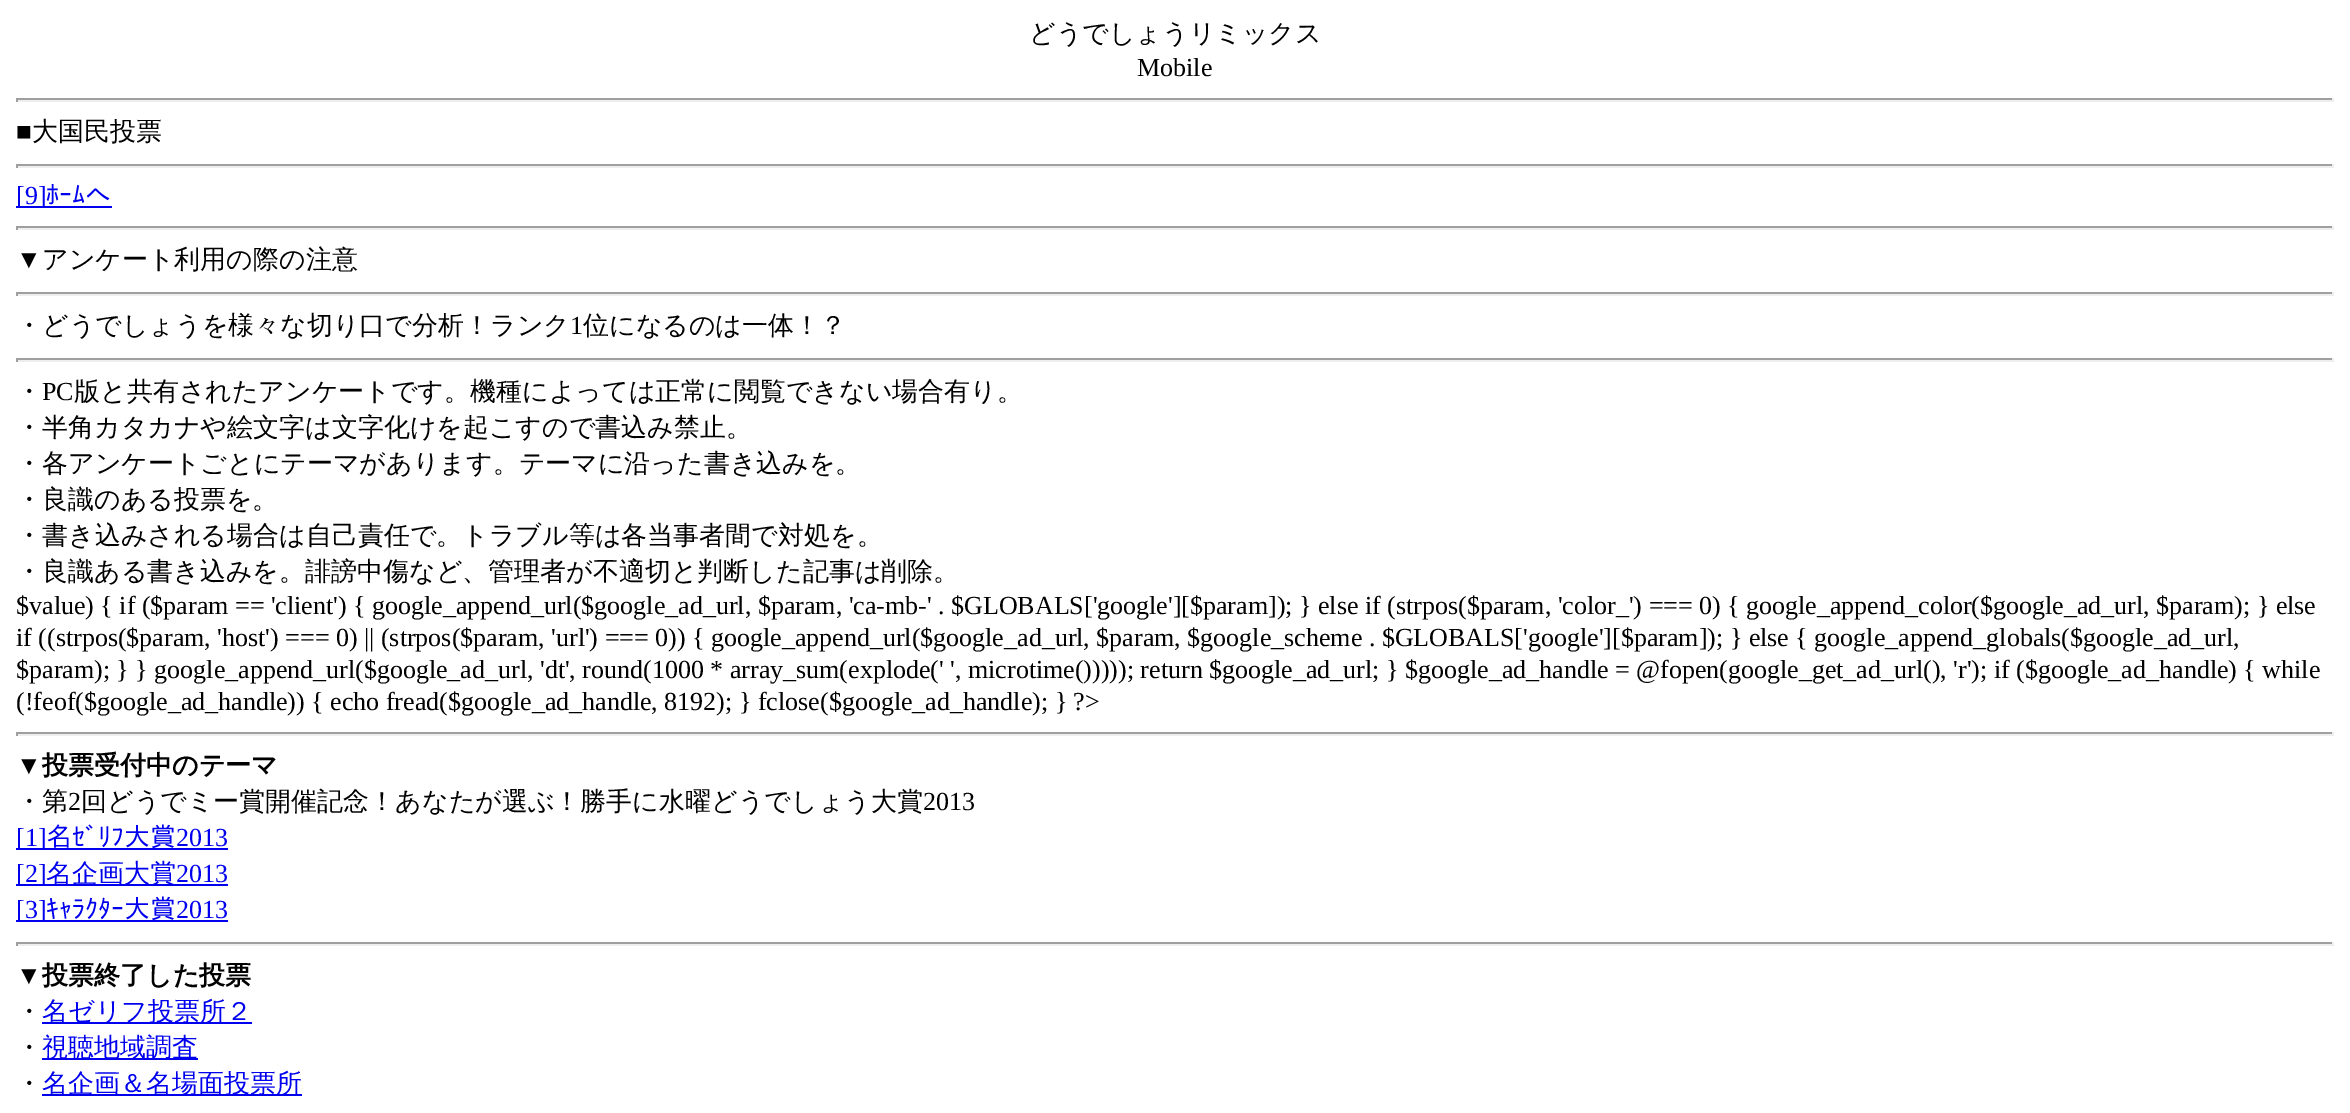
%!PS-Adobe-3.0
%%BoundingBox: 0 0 2350 1113
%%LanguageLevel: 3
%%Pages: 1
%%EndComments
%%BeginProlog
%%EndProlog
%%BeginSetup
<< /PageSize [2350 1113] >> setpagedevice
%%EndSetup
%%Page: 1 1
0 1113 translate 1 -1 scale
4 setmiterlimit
1 setgray
0 0 2350 1113 rectfill
0.624 setgray
16 98 2318 2 rectfill
0.933 setgray
2332 98 2 4 rectfill
16 100 2318 2 rectfill
0.624 setgray
16 98 2 4 rectfill
16 164 2318 2 rectfill
0.933 setgray
2332 164 2 4 rectfill
16 166 2318 2 rectfill
0.624 setgray
16 164 2 4 rectfill
0 0 0.933 setrgbcolor
16 206 96 2 rectfill
0.624 setgray
16 226 2318 2 rectfill
0.933 setgray
2332 226 2 4 rectfill
16 228 2318 2 rectfill
0.624 setgray
16 226 2 4 rectfill
16 292 2318 2 rectfill
0.933 setgray
2332 292 2 4 rectfill
16 294 2318 2 rectfill
0.624 setgray
16 292 2 4 rectfill
16 358 2318 2 rectfill
0.933 setgray
2332 358 2 4 rectfill
16 360 2318 2 rectfill
0.624 setgray
16 358 2 4 rectfill
16 732 2318 2 rectfill
0.933 setgray
2332 732 2 4 rectfill
16 734 2318 2 rectfill
0.624 setgray
16 732 2 4 rectfill
0 0 0.933 setrgbcolor
16 848 212 2 rectfill
16 884 212 2 rectfill
16 920 212 2 rectfill
0.624 setgray
16 942 2318 2 rectfill
0.933 setgray
2332 942 2 4 rectfill
16 944 2318 2 rectfill
0.624 setgray
16 942 2 4 rectfill
0 0 0.933 setrgbcolor
42 1022 210 2 rectfill
42 1058 156 2 rectfill
42 1094 260 2 rectfill
/WenQuanYiZenHei-Medium [26 0 0 -26 0 0] selectfont
0 setgray
1029 42 moveto (どうでしょうリミックス) show
/LiberationSerif-Regular [26 0 0 -26 0 0] selectfont
1137 76 moveto (Mobile) show
16 140 moveto (■) show
/WenQuanYiZenHei-Medium [26 0 0 -26 0 0] selectfont
32 140 moveto (大国民投票) show
/LiberationSerif-Regular [26 0 0 -26 0 0] selectfont
0 0 0.933 setrgbcolor
16 204 moveto ([9]) show
/IPAGothic-Regular [26 0 0 -26 0 0] selectfont
46 204 moveto (ﾎｰﾑへ) show
/LiberationSerif-Regular [26 0 0 -26 0 0] selectfont
0 setgray
16 268 moveto (▼) show
/WenQuanYiZenHei-Medium [26 0 0 -26 0 0] selectfont
42 268 moveto (アンケート利用の際の注意) show
16 334 moveto (・どうでしょうを様々な切り口で分析！ランク) show
/LiberationSerif-Regular [26 0 0 -26 0 0] selectfont
570 334 moveto (1) show
/WenQuanYiZenHei-Medium [26 0 0 -26 0 0] selectfont
583 334 moveto (位になるのは一体！？) show
16 400 moveto (・) show
/LiberationSerif-Regular [26 0 0 -26 0 0] selectfont
42 400 moveto (PC) show
/WenQuanYiZenHei-Medium [26 0 0 -26 0 0] selectfont
74 400 moveto (版と共有されたアンケートです。機種によっては正常に閲覧できない場合有り。) show
16 436 moveto (・半角カタカナや絵文字は文字化けを起こすので書込み禁止。) show
16 472 moveto (・各アンケートごとにテーマがあります。テーマに沿った書き込みを。) show
16 508 moveto (・良識のある投票を。) show
16 544 moveto (・書き込みされる場合は自己責任で。トラブル等は各当事者間で対処を。) show
16 580 moveto (・良識ある書き込みを。誹謗中傷など、管理者が不適切と判断した記事は削除。) show
/LiberationSerif-Regular [26 0 0 -26 0 0] selectfont
16 614 moveto ($value\) { if \($param == 'client'\) { google_append_url\($google_ad_url, $param, 'ca-mb-' . $GLOBALS['google'][$param]\); } else if \(strpos\($param, 'color_'\) === 0\) { google_append_color\($google_ad_url, $param\); } else) show
16 646 moveto (if \(\(strpos\($param, 'host'\) === 0\) || \(strpos\($param, 'url'\) === 0\)\) { google_append_url\($google_ad_url, $param, $google_scheme . $GLOBALS['google'][$param]\); } else { google_append_globals\($google_ad_url,) show
16 678 moveto ($param\); } } google_append_url\($google_ad_url, 'dt', round\(1000 * array_sum\(explode\(' ', microtime\(\)\)\)\)\); return $google_ad_url; } $google_ad_handle = @fopen\(google_get_ad_url\(\), 'r'\); if \($google_ad_handle\) { while) show
16 710 moveto (\(!feof\($google_ad_handle\)\) { echo fread\($google_ad_handle, 8192\); } fclose\($google_ad_handle\); } ?>) show
/LiberationSerif-Bold [26 0 0 -26 0 0] selectfont
16 774 moveto (▼) show
/WenQuanYiZenHei-Bold [26 0 0 -26 0 0] selectfont
42 774 moveto (投票受付中のテーマ) show
/WenQuanYiZenHei-Medium [26 0 0 -26 0 0] selectfont
16 810 moveto (・第) show
/LiberationSerif-Regular [26 0 0 -26 0 0] selectfont
68 810 moveto (2) show
/WenQuanYiZenHei-Medium [26 0 0 -26 0 0] selectfont
81 810 moveto (回どうでミー賞開催記念！あなたが選ぶ！勝手に水曜どうでしょう大賞) show
/LiberationSerif-Regular [26 0 0 -26 0 0] selectfont
923 810 moveto (2013) show
0 0 0.933 setrgbcolor
16 846 moveto ([1]) show
/IPAGothic-Regular [26 0 0 -26 0 0] selectfont
46 846 moveto (名ｾﾞﾘﾌ大賞) show
/LiberationSerif-Regular [26 0 0 -26 0 0] selectfont
176 846 moveto (2013) show
16 882 moveto ([2]) show
/WenQuanYiZenHei-Medium [26 0 0 -26 0 0] selectfont
46 882 moveto (名企画大賞) show
/LiberationSerif-Regular [26 0 0 -26 0 0] selectfont
176 882 moveto (2013) show
16 918 moveto ([3]) show
/IPAGothic-Regular [26 0 0 -26 0 0] selectfont
46 918 moveto (ｷｬﾗｸﾀｰ大賞) show
/LiberationSerif-Regular [26 0 0 -26 0 0] selectfont
176 918 moveto (2013) show
/LiberationSerif-Bold [26 0 0 -26 0 0] selectfont
0 setgray
16 984 moveto (▼) show
/WenQuanYiZenHei-Bold [26 0 0 -26 0 0] selectfont
42 984 moveto (投票終了した投票) show
/WenQuanYiZenHei-Medium [26 0 0 -26 0 0] selectfont
16 1020 moveto (・) show
0 0 0.933 setrgbcolor
42 1020 moveto (名ゼリフ投票所２) show
0 setgray
16 1056 moveto (・) show
0 0 0.933 setrgbcolor
42 1056 moveto (視聴地域調査) show
0 setgray
16 1092 moveto (・) show
0 0 0.933 setrgbcolor
42 1092 moveto (名企画＆名場面投票所) show
showpage
%%EOF
